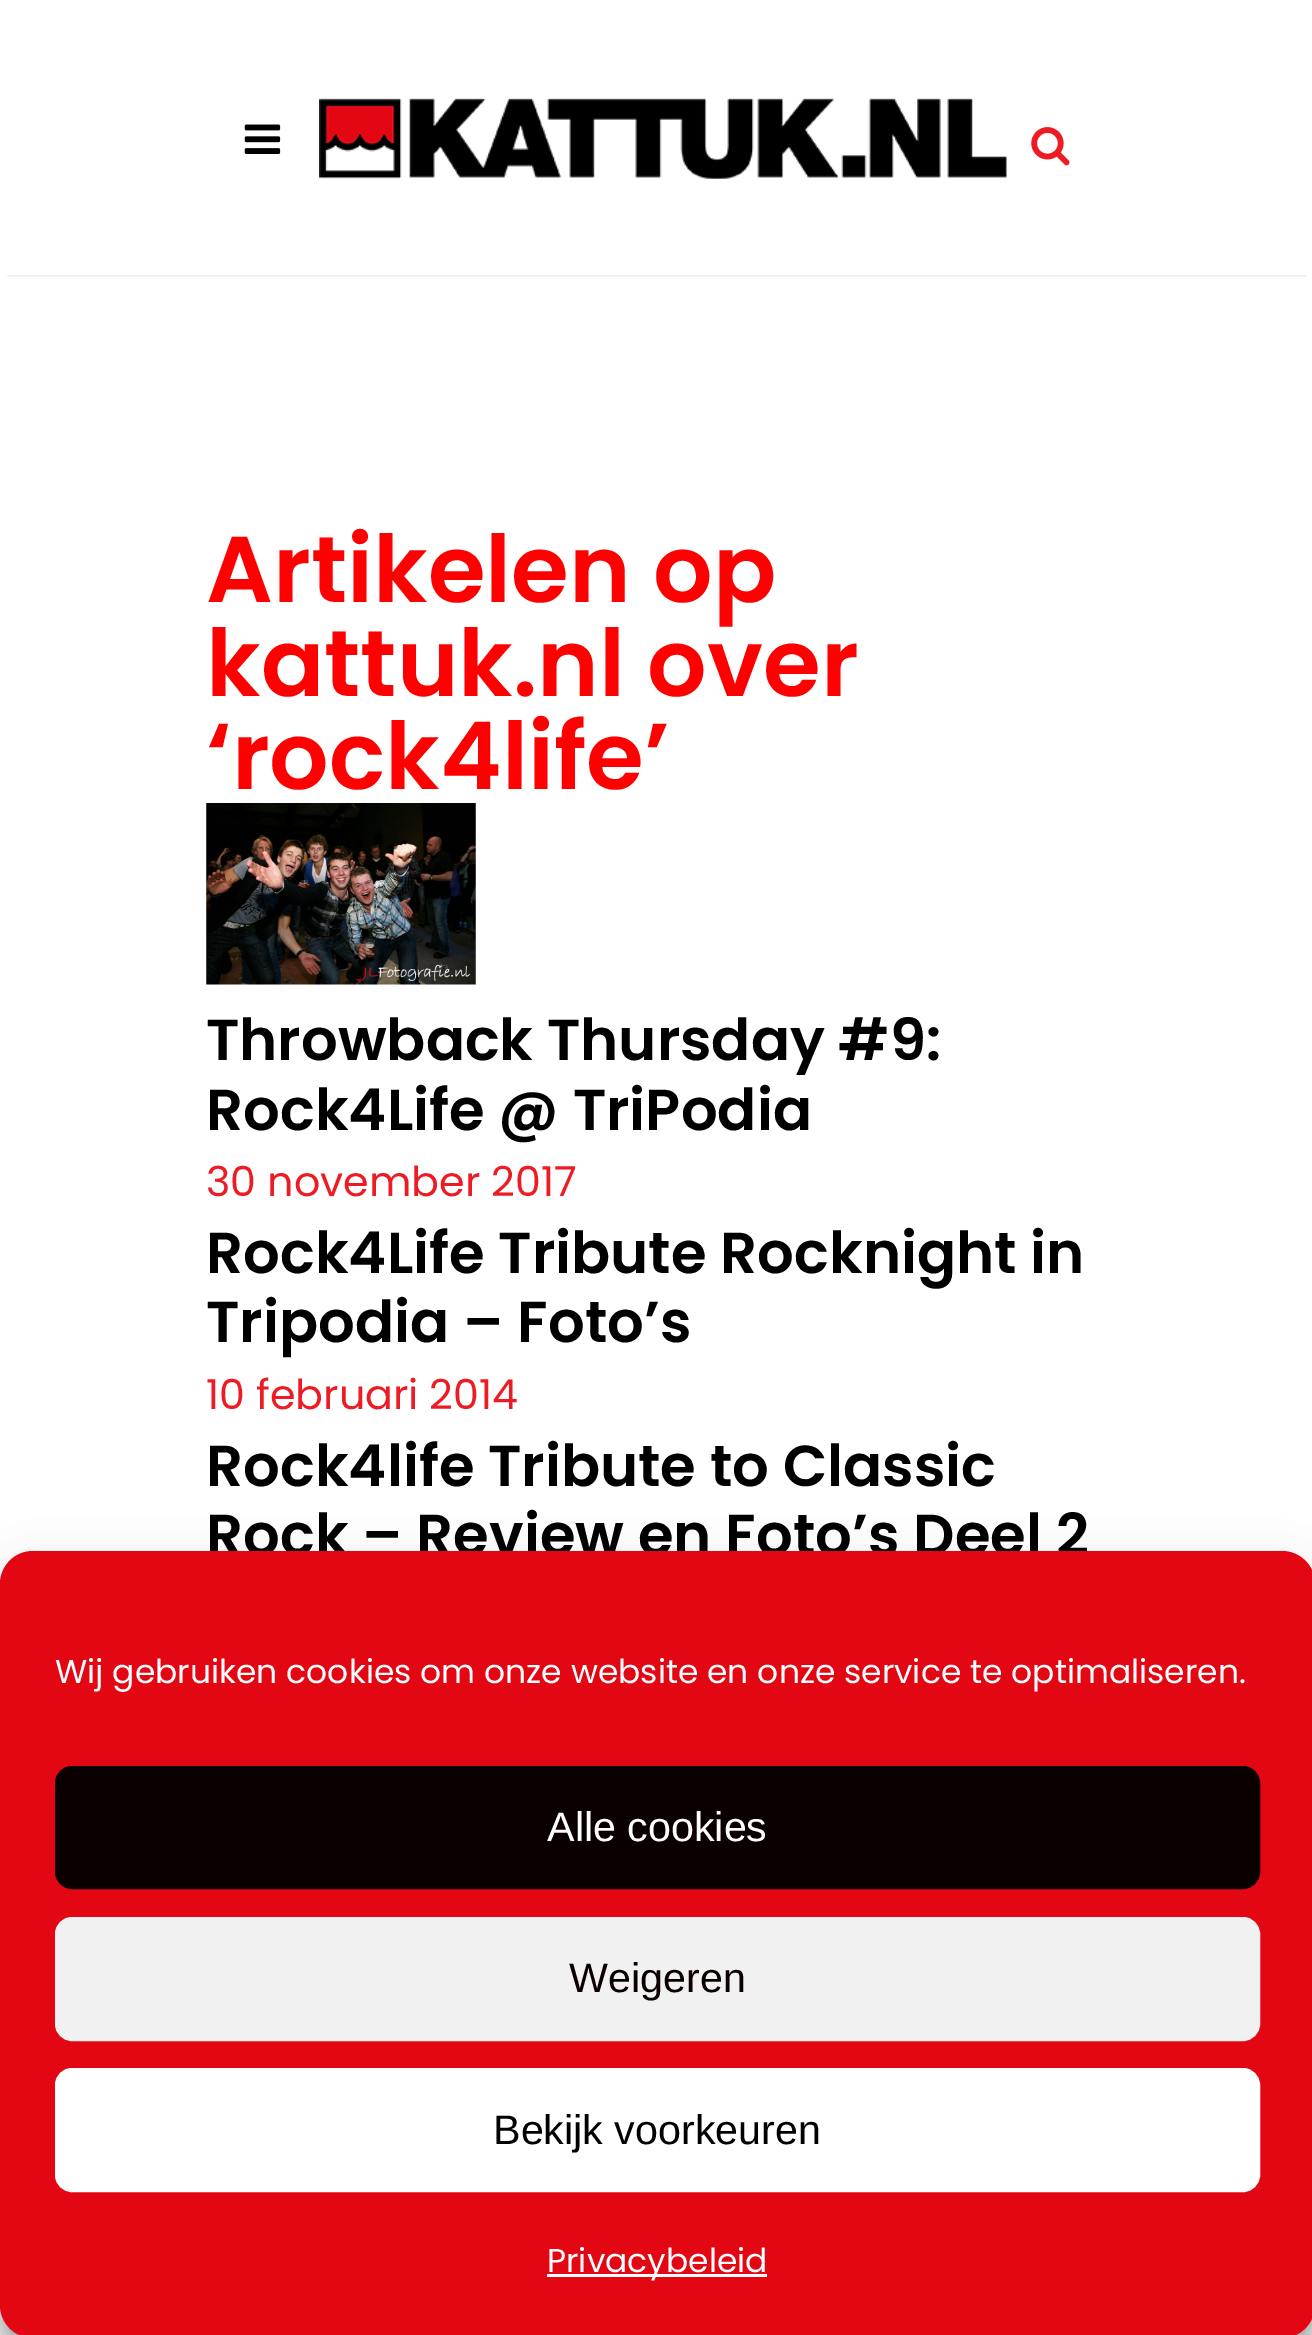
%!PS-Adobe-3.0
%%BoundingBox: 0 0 1312 2335
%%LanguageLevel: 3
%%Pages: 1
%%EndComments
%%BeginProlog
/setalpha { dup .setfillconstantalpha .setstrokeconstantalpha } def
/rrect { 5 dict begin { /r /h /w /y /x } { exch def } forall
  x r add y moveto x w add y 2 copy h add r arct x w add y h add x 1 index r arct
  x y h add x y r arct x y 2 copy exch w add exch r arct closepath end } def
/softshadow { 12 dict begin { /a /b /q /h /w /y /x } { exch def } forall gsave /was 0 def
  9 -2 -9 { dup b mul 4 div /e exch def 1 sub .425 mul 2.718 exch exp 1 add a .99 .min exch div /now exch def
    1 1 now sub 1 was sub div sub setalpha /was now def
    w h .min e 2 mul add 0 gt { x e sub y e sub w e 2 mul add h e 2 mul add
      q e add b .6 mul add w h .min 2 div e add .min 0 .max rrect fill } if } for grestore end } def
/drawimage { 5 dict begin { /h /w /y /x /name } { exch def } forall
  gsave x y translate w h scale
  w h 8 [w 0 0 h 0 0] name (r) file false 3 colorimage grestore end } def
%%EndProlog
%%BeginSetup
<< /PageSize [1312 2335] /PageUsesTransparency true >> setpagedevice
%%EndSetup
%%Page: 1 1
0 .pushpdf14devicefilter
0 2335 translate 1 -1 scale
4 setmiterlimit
1 setgray
0 0 1312 2335 rectfill
gsave
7 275 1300 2 rectclip
0 setgray
8 14 1298 258 0 3 0.5 softshadow
grestore
(images/1.raw) 244 124 37 30 drawimage
(images/2.raw) 319 98 688 81 drawimage
(images/3.raw) 1031 127 39 39 drawimage
(images/4.raw) 206 803 270 182 drawimage
0 setgray
0 1568 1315 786 33 8 0.23 softshadow
0 1579 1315 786 33 27.5 0.19 softshadow
/Poppins-SemiBold [93.5 0 0 -93.5 0 0] selectfont
1 0 0 setrgbcolor
206 602 moveto (Artikelen op) show
206 696 moveto (kattuk.nl over) show
206 789 moveto (‘rock4life’) show
/Poppins-SemiBold [57.75 0 0 -57.75 0 0] selectfont
0 setgray
206 1060 moveto (Throwback Thursday #9:) show
206 1130 moveto (Rock4Life @ TriPodia) show
/Poppins-Regular [41.25 0 0 -41.25 0 0] selectfont
0.929 0.11 0.141 setrgbcolor
206 1196 moveto (30 november 2017) show
/Poppins-SemiBold [57.75 0 0 -57.75 0 0] selectfont
0 setgray
206 1273 moveto (Rock4Life Tribute Rocknight in) show
206 1342 moveto (Tripodia – Foto’s) show
/Poppins-Regular [41.25 0 0 -41.25 0 0] selectfont
0.929 0.11 0.141 setrgbcolor
206 1409 moveto (10 februari 2014) show
/Poppins-SemiBold [57.75 0 0 -57.75 0 0] selectfont
0 setgray
206 1486 moveto (Rock4life Tribute to Classic) show
206 1555 moveto (Rock – Review en Foto’s Deel 2) show
0.89 0.024 0.075 setrgbcolor
0 1551 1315 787 33 rrect fill
/Poppins-Regular [33 0 0 -33 0 0] selectfont
1 setgray
55 1683 moveto (Wij gebruiken cookies om onze website en onze service te optimaliseren.) show
0.039 0 0 setrgbcolor
56.5 1767.5 1202 120 15.5 rrect gsave fill grestore
3 setlinewidth
stroke
/LiberationSans-Regular [41.25 0 0 -41.25 0 0] selectfont
1 setgray
547 1841 moveto (Alle cookies) show
0.945 setgray
56.5 1918.5 1202 121 15.5 rrect gsave fill grestore
stroke
0.039 0 0 setrgbcolor
569 1992 moveto (Weigeren) show
1 setgray
56.5 2069.5 1202 121 15.5 rrect gsave fill grestore
stroke
0 setgray
493 2144 moveto (Bekijk voorkeuren) show
1 setgray
547 2274 220 3 rectfill
/Poppins-Regular [33 0 0 -33 0 0] selectfont
547 2272 moveto (Privacybeleid) show
.poppdf14devicefilter showpage
%%EOF
